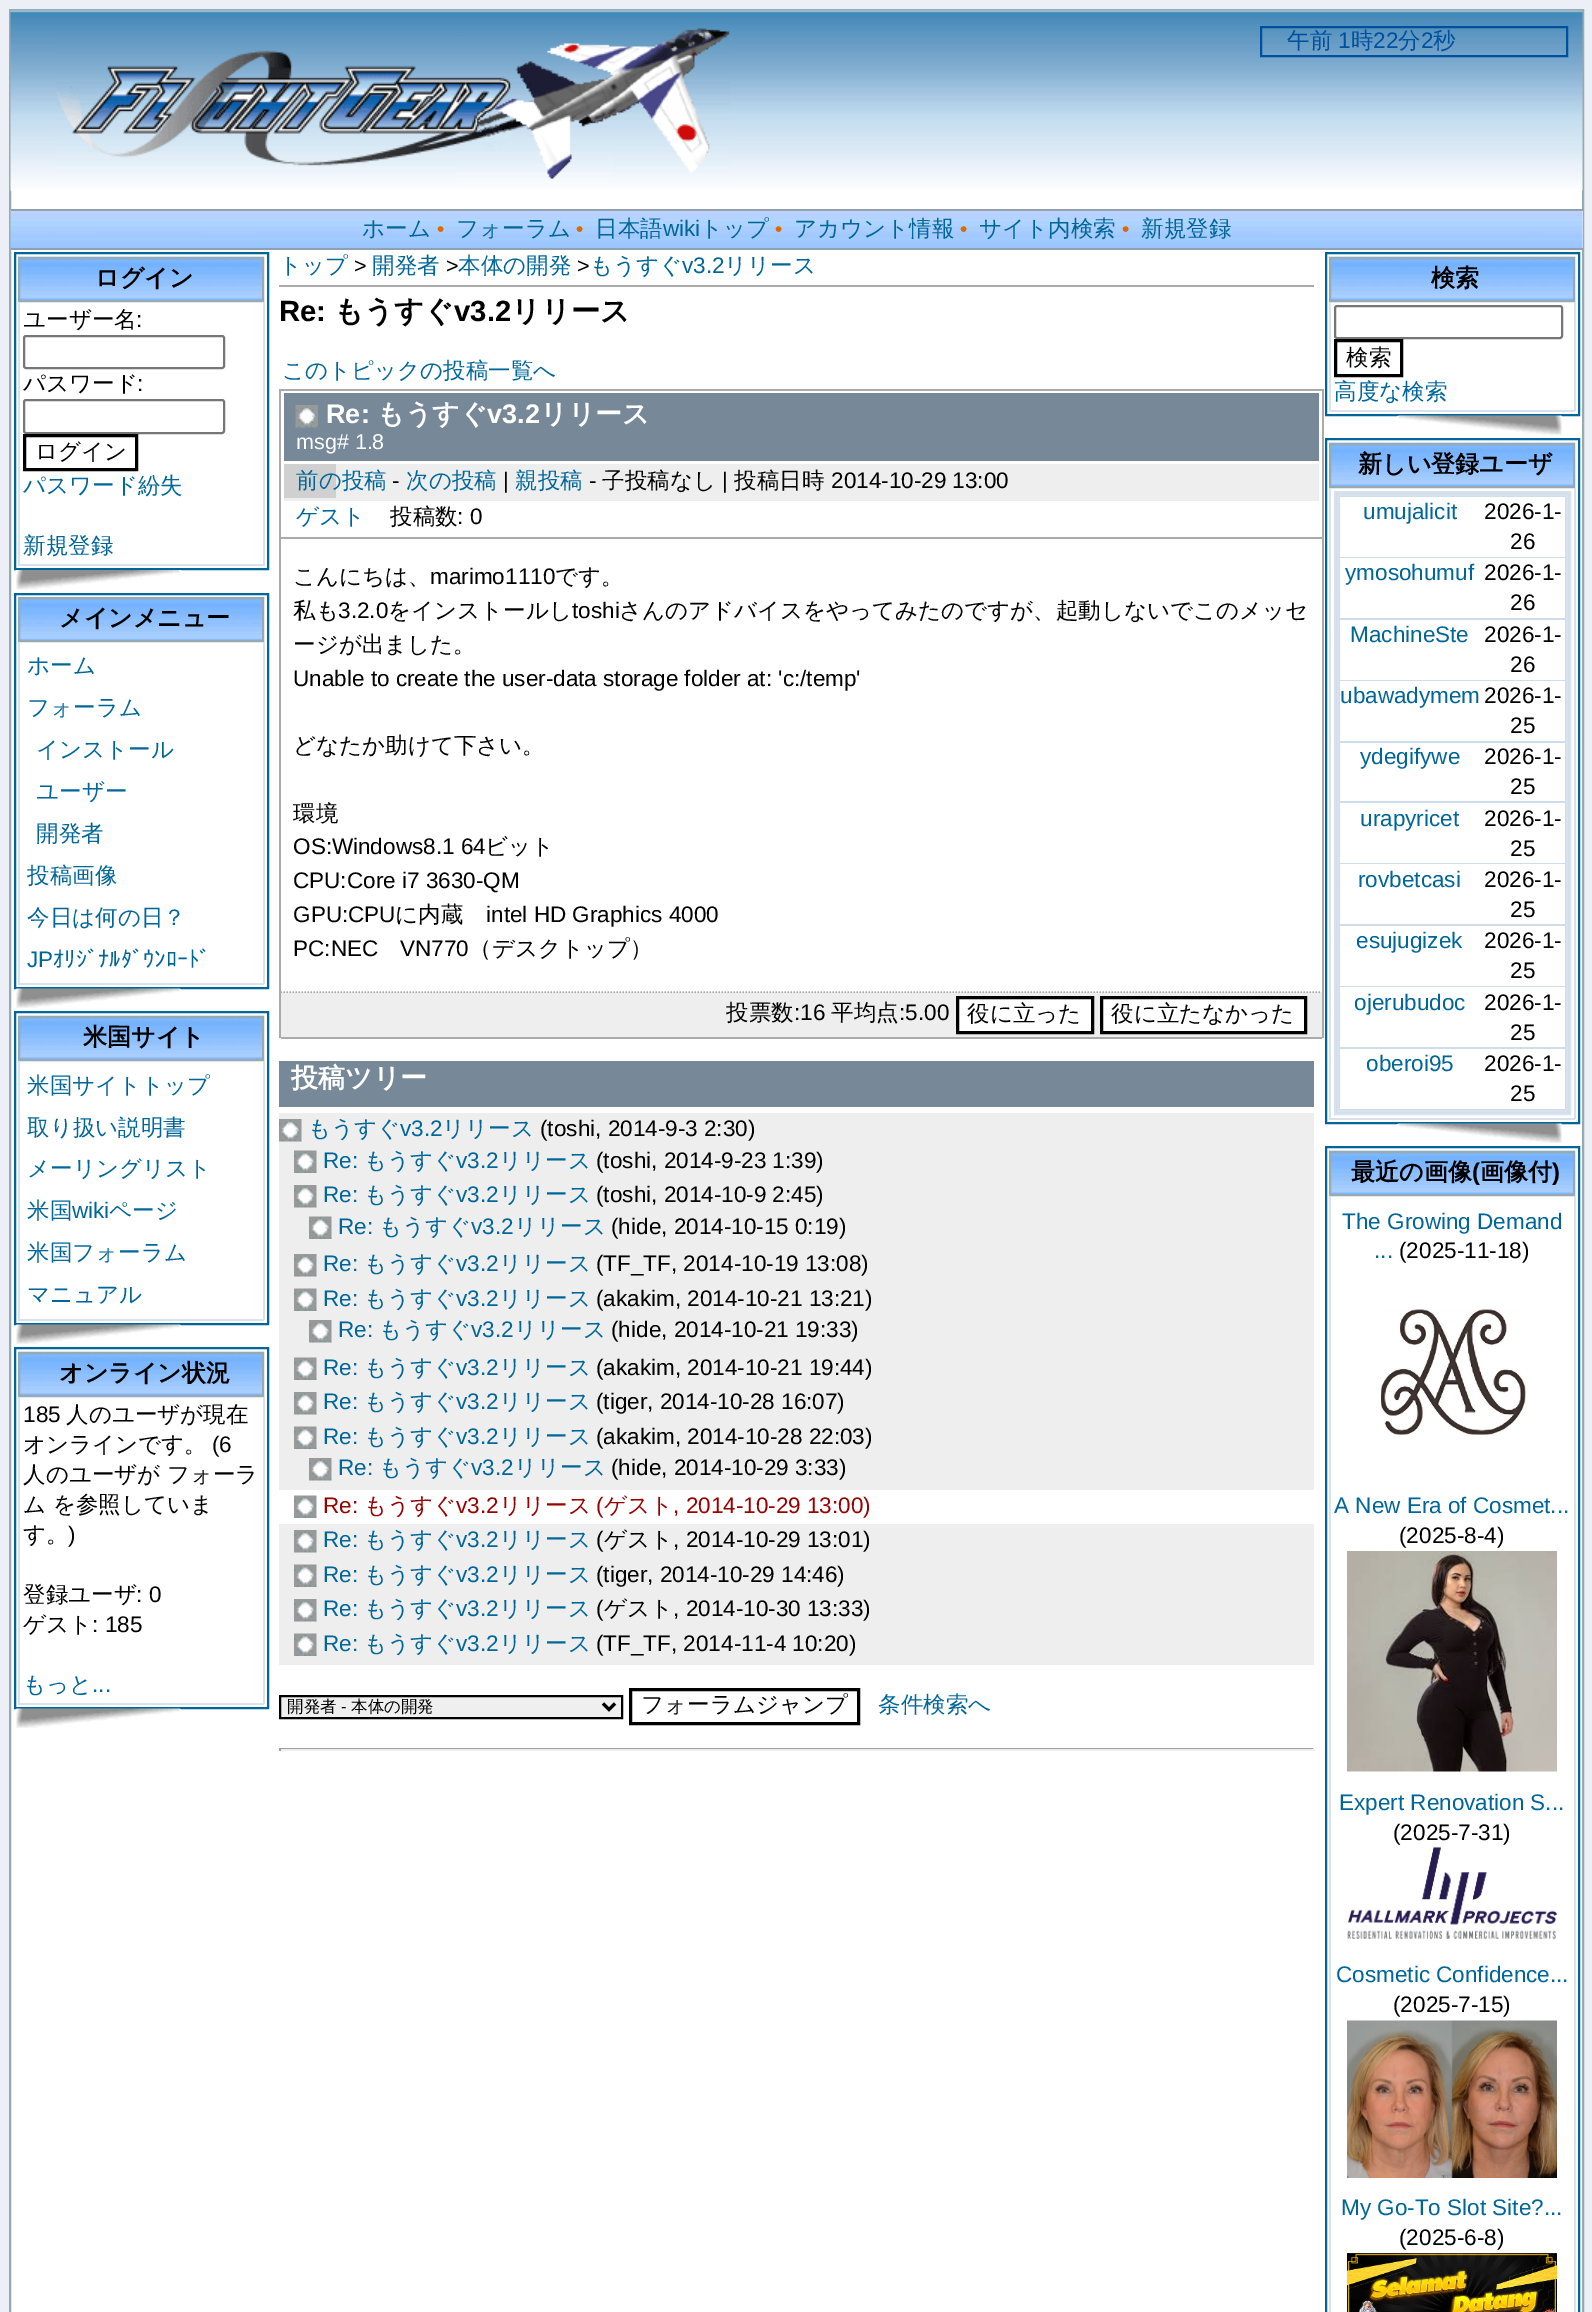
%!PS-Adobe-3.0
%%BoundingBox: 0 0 1592 2312
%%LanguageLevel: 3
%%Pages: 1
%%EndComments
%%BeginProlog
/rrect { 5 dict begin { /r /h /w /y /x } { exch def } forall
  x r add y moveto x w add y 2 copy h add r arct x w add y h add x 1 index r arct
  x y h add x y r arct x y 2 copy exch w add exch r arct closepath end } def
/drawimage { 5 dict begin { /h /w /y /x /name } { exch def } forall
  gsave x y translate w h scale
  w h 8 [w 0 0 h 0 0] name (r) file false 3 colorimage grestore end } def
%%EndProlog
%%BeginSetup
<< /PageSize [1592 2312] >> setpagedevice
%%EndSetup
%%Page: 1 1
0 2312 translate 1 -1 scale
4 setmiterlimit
0.925 0.941 0.965 setrgbcolor
0 0 1592 2312 rectfill
1 setgray
11 190 1571 2122 rectfill
0.596 0.667 0.694 setrgbcolor
2 setlinewidth
10 10 1573 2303 rectstroke
(images/1.raw) 10 10 1573 181 drawimage
(images/2.raw) 56 28 674 152 drawimage
0 0.314 0.62 setrgbcolor
1261 27 306 29 rectstroke
0.898 0.922 0.953 setrgbcolor
1582 211 1 37 rectfill
(images/3.raw) 10 210 1573 39 drawimage
0.569 0.627 0.682 setrgbcolor
11 209 1572 2 rectfill
11 248 1572 2 rectfill
0 0.4 0.6 setrgbcolor
15 253 253 316 rectstroke
(images/4.raw) 18 256 246 44 drawimage
0.596 0.667 0.694 setrgbcolor
19 258 244 43 rectstroke
0.851 0.886 0.925 setrgbcolor
263 302 2 264 rectfill
18 564 246 2 rectfill
18 302 2 264 rectfill
0.463 setgray
24 336 200 32 2 rrect stroke
24 400 200 33 2 rrect stroke
0 setgray
3 setlinewidth
24.5 435.5 112 34 rectstroke
(images/5.raw) 16 570 165 20 drawimage
0 0.4 0.6 setrgbcolor
2 setlinewidth
15 594 253 394 rectstroke
(images/6.raw) 20 599 242 41 drawimage
0.596 0.667 0.694 setrgbcolor
19 598 244 43 rectstroke
0.851 0.886 0.925 setrgbcolor
263 642 2 342 rectfill
18 983 246 2 rectfill
18 642 2 342 rectfill
(images/7.raw) 16 988 165 20 drawimage
0 0.4 0.6 setrgbcolor
15 1012 253 312 rectstroke
(images/4.raw) 18 1015 246 44 drawimage
0.596 0.667 0.694 setrgbcolor
19 1017 244 43 rectstroke
0.851 0.886 0.925 setrgbcolor
263 1061 2 259 rectfill
18 1319 246 2 rectfill
18 1061 2 259 rectfill
(images/7.raw) 16 1324 165 20 drawimage
0 0.4 0.6 setrgbcolor
15 1348 253 360 rectstroke
(images/8.raw) 18 1351 246 44 drawimage
0.596 0.667 0.694 setrgbcolor
19 1353 244 43 rectstroke
0.851 0.886 0.925 setrgbcolor
263 1397 2 307 rectfill
18 1703 246 2 rectfill
18 1397 2 307 rectfill
(images/7.raw) 16 1708 165 20 drawimage
0.667 setgray
279 285 1035 2 rectfill
279 389 1044 2 rectfill
1322 389 2 649 rectfill
279 389 2 649 rectfill
0.467 0.533 0.6 setrgbcolor
284 393 1035 68 rectfill
(images/9.raw) 295 405 23 23 drawimage
0.933 setgray
284 464 1035 37 rectfill
0.816 setgray
284 464 52 34 rectfill
0.667 setgray
281 537 1041 2 rectfill
0.933 setgray
281 992 1041 45 rectfill
0.667 setgray
1.5 setlinewidth
[1.5 1.5] 0 setdash
newpath 280.5 992 moveto 1321.5 992 lineto stroke
281 1037 1041 2 rectfill
1 setgray
newpath 957.5 997.5 moveto 1092.5 997.5 lineto 1092.5 1032.5 lineto 957.5 1032.5 lineto closepath gsave fill grestore
0 setgray
3 setlinewidth
[] 0 setdash
stroke
1 setgray
newpath 1101.5 997.5 moveto 1305.5 997.5 lineto 1305.5 1032.5 lineto 1101.5 1032.5 lineto closepath gsave fill grestore
0 setgray
stroke
0.467 0.533 0.6 setrgbcolor
279 1061 1035 46 rectfill
0.933 setgray
279 1113 1035 552 rectfill
(images/10.raw) 279 1119 23 23 drawimage
(images/11.raw) 294 1150 23 23 drawimage
(images/10.raw) 294 1185 23 23 drawimage
(images/11.raw) 309 1216 23 23 drawimage
(images/10.raw) 294 1254 23 23 drawimage
(images/11.raw) 294 1288 23 23 drawimage
(images/10.raw) 309 1320 23 23 drawimage
(images/11.raw) 294 1357 23 23 drawimage
(images/10.raw) 294 1392 23 23 drawimage
(images/11.raw) 294 1426 23 23 drawimage
(images/10.raw) 309 1458 23 23 drawimage
1 setgray
279 1490 1035 34 rectfill
(images/12.raw) 294 1495 23 23 drawimage
(images/10.raw) 294 1530 23 23 drawimage
(images/11.raw) 294 1564 23 23 drawimage
(images/10.raw) 294 1599 23 23 drawimage
(images/11.raw) 294 1633 23 23 drawimage
0.937 setgray
newpath 280 1696 moveto 622 1696 lineto 622 1718 lineto 280 1718 lineto closepath gsave fill grestore
0 setgray
2 setlinewidth
stroke
3 setlinewidth
newpath 603 1703.5 moveto 609 1709.5 lineto 615 1703.5 lineto stroke
630.5 1689.5 228 34 rectstroke
0.624 setgray
279 1748 1035 1 rectfill
0.933 setgray
1313 1748 2 3 rectfill
279 1749 1035 2 rectfill
0.624 setgray
279 1748 2 3 rectfill
0 0.4 0.6 setrgbcolor
2 setlinewidth
1326 253 253 162 rectstroke
(images/13.raw) 1329 256 246 44 drawimage
0.596 0.667 0.694 setrgbcolor
1330 258 244 43 rectstroke
0.851 0.886 0.925 setrgbcolor
1574 302 2 109 rectfill
1329 410 246 2 rectfill
1329 302 2 109 rectfill
0.463 setgray
1335 306 227 32 2 rrect stroke
0 setgray
3 setlinewidth
1335.5 340.5 66 35 rectstroke
(images/14.raw) 1397 415 165 20 drawimage
0 0.4 0.6 setrgbcolor
2 setlinewidth
1326 439 253 684 rectstroke
(images/15.raw) 1329 442 246 44 drawimage
0.596 0.667 0.694 setrgbcolor
1330 444 244 43 rectstroke
0.851 0.886 0.925 setrgbcolor
1574 488 2 631 rectfill
1329 1118 246 2 rectfill
1329 488 2 631 rectfill
0.808 0.863 0.925 setrgbcolor
newpath 1335 492 moveto 1570 492 lineto 1570 1114 lineto 1335 1114 lineto closepath gsave fill grestore
0.851 0.886 0.925 setrgbcolor
stroke
1338 495 229 616 rectstroke
1 setgray
1340 497 225 60 rectfill
1340 558 225 60 rectfill
1340 620 225 60 rectfill
1340 681 225 60 rectfill
1340 743 225 58 rectfill
1340 803 225 60 rectfill
1340 864 225 60 rectfill
1340 926 225 60 rectfill
1340 987 225 60 rectfill
1340 1049 225 60 rectfill
(images/14.raw) 1397 1123 165 20 drawimage
0 0.4 0.6 setrgbcolor
1326 1147 253 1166 rectstroke
(images/15.raw) 1329 1150 246 44 drawimage
0.596 0.667 0.694 setrgbcolor
1330 1152 244 43 rectstroke
0.851 0.886 0.925 setrgbcolor
1574 1196 2 1116 rectfill
1329 1196 2 1116 rectfill
(images/16.raw) 1381 1309 145 126 drawimage
(images/17.raw) 1347 1551 210 221 drawimage
(images/18.raw) 1347 1846 210 94 drawimage
(images/19.raw) 1347 2020 210 158 drawimage
(images/20.raw) 1347 2253 210 59 drawimage
/WenQuanYiZenHei-Medium [22.5 0 0 -22.5 0 0] selectfont
0 0.314 0.62 setrgbcolor
1287 48 moveto (午前) show
/LiberationSans-Regular [22.5 0 0 -22.5 0 0] selectfont
1338 48 moveto (1) show
/WenQuanYiZenHei-Medium [22.5 0 0 -22.5 0 0] selectfont
1351 48 moveto (時) show
/LiberationSans-Regular [22.5 0 0 -22.5 0 0] selectfont
1373 48 moveto (22) show
/WenQuanYiZenHei-Medium [22.5 0 0 -22.5 0 0] selectfont
1398 48 moveto (分) show
/LiberationSans-Regular [22.5 0 0 -22.5 0 0] selectfont
1421 48 moveto (2) show
/WenQuanYiZenHei-Medium [22.5 0 0 -22.5 0 0] selectfont
1433 48 moveto (秒) show
0 0.4 0.6 setrgbcolor
362 236 moveto (ホーム) show
/LiberationSans-Regular [21 0 0 -21 0 0] selectfont
0.867 0.412 0 setrgbcolor
437 236 moveto (•) show
/WenQuanYiZenHei-Medium [22.5 0 0 -22.5 0 0] selectfont
0 0.4 0.6 setrgbcolor
456 236 moveto (フォーラム) show
/LiberationSans-Regular [21 0 0 -21 0 0] selectfont
0.867 0.412 0 setrgbcolor
576 236 moveto (•) show
/WenQuanYiZenHei-Medium [22.5 0 0 -22.5 0 0] selectfont
0 0.4 0.6 setrgbcolor
595 236 moveto (日本語) show
/LiberationSans-Regular [22.5 0 0 -22.5 0 0] selectfont
663 236 moveto (wiki) show
/WenQuanYiZenHei-Medium [22.5 0 0 -22.5 0 0] selectfont
700 236 moveto (トップ) show
/LiberationSans-Regular [21 0 0 -21 0 0] selectfont
0.867 0.412 0 setrgbcolor
775 236 moveto (•) show
/WenQuanYiZenHei-Medium [22.5 0 0 -22.5 0 0] selectfont
0 0.4 0.6 setrgbcolor
794 236 moveto (アカウント情報) show
/LiberationSans-Regular [21 0 0 -21 0 0] selectfont
0.867 0.412 0 setrgbcolor
960 236 moveto (•) show
/WenQuanYiZenHei-Medium [22.5 0 0 -22.5 0 0] selectfont
0 0.4 0.6 setrgbcolor
979 236 moveto (サイト内検索) show
/LiberationSans-Regular [21 0 0 -21 0 0] selectfont
0.867 0.412 0 setrgbcolor
1122 236 moveto (•) show
/WenQuanYiZenHei-Medium [22.5 0 0 -22.5 0 0] selectfont
0 0.4 0.6 setrgbcolor
1141 236 moveto (新規登録) show
/WenQuanYiZenHei-Bold [24 0 0 -24 0 0] selectfont
0 setgray
95 286 moveto (ログイン) show
/WenQuanYiZenHei-Medium [22.5 0 0 -22.5 0 0] selectfont
23 327 moveto (ユーザー名) show
/LiberationSans-Regular [22.5 0 0 -22.5 0 0] selectfont
136 327 moveto (:) show
/WenQuanYiZenHei-Medium [22.5 0 0 -22.5 0 0] selectfont
23 391 moveto (パスワード) show
/LiberationSans-Regular [22.5 0 0 -22.5 0 0] selectfont
137 391 moveto (:) show
/WenQuanYiZenHei-Medium [22.5 0 0 -22.5 0 0] selectfont
35 459 moveto (ログイン) show
0 0.4 0.6 setrgbcolor
23 493 moveto (パスワード紛失) show
23 553 moveto (新規登録) show
/WenQuanYiZenHei-Bold [24 0 0 -24 0 0] selectfont
0 setgray
59 626 moveto (メインメニュー) show
/WenQuanYiZenHei-Medium [22.5 0 0 -22.5 0 0] selectfont
0 0.4 0.6 setrgbcolor
27 673 moveto (ホーム) show
27 715 moveto (フォーラム) show
36 757 moveto (インストール) show
36 799 moveto (ユーザー) show
36 841 moveto (開発者) show
27 883 moveto (投稿画像) show
27 925 moveto (今日は何の日？) show
/LiberationSans-Regular [22.5 0 0 -22.5 0 0] selectfont
27 967 moveto (JP) show
/IPAPGothic-Regular [22.5 0 0 -22.5 0 0] selectfont
53 967 moveto (ｵﾘｼﾞﾅﾙﾀﾞｳﾝﾛｰﾄﾞ) show
/WenQuanYiZenHei-Bold [24 0 0 -24 0 0] selectfont
0 setgray
83 1045 moveto (米国サイト) show
/WenQuanYiZenHei-Medium [22.5 0 0 -22.5 0 0] selectfont
0 0.4 0.6 setrgbcolor
27 1093 moveto (米国サイトトップ) show
27 1135 moveto (取り扱い説明書) show
27 1176 moveto (メーリングリスト) show
27 1218 moveto (米国) show
/LiberationSans-Regular [22.5 0 0 -22.5 0 0] selectfont
72 1218 moveto (wiki) show
/WenQuanYiZenHei-Medium [22.5 0 0 -22.5 0 0] selectfont
109 1218 moveto (ページ) show
27 1260 moveto (米国フォーラム) show
27 1302 moveto (マニュアル) show
/WenQuanYiZenHei-Bold [24 0 0 -24 0 0] selectfont
0 setgray
59 1381 moveto (オンライン状況) show
/LiberationSans-Regular [22.5 0 0 -22.5 0 0] selectfont
23 1422 moveto (185) show
/WenQuanYiZenHei-Medium [22.5 0 0 -22.5 0 0] selectfont
66 1422 moveto (人のユーザが現在) show
23 1452 moveto (オンラインです。) show
/LiberationSans-Regular [22.5 0 0 -22.5 0 0] selectfont
212 1452 moveto (\(6) show
/WenQuanYiZenHei-Medium [22.5 0 0 -22.5 0 0] selectfont
23 1482 moveto (人のユーザが フォーラ) show
23 1512 moveto (ム を参照していま) show
23 1542 moveto (す。) show
/LiberationSans-Regular [22.5 0 0 -22.5 0 0] selectfont
68 1542 moveto (\)) show
/WenQuanYiZenHei-Medium [22.5 0 0 -22.5 0 0] selectfont
23 1602 moveto (登録ユーザ) show
/LiberationSans-Regular [22.5 0 0 -22.5 0 0] selectfont
136 1602 moveto (: 0) show
/WenQuanYiZenHei-Medium [22.5 0 0 -22.5 0 0] selectfont
23 1632 moveto (ゲスト) show
/LiberationSans-Regular [22.5 0 0 -22.5 0 0] selectfont
92 1632 moveto (: 185) show
/WenQuanYiZenHei-Medium [22.5 0 0 -22.5 0 0] selectfont
0 0.4 0.6 setrgbcolor
23 1692 moveto (もっと) show
/LiberationSans-Regular [22.5 0 0 -22.5 0 0] selectfont
92 1692 moveto (...) show
/WenQuanYiZenHei-Medium [22.5 0 0 -22.5 0 0] selectfont
279 273 moveto (トップ) show
/LiberationSans-Regular [21.5 0 0 -21.5 0 0] selectfont
0 setgray
354 273 moveto (>) show
/WenQuanYiZenHei-Medium [22.5 0 0 -22.5 0 0] selectfont
0 0.4 0.6 setrgbcolor
372 273 moveto (開発者) show
/LiberationSans-Regular [21.5 0 0 -21.5 0 0] selectfont
0 setgray
446 273 moveto (>) show
/WenQuanYiZenHei-Medium [22.5 0 0 -22.5 0 0] selectfont
0 0.4 0.6 setrgbcolor
458 273 moveto (本体の開発) show
/LiberationSans-Regular [21.5 0 0 -21.5 0 0] selectfont
0 setgray
577 273 moveto (>) show
/WenQuanYiZenHei-Medium [22.5 0 0 -22.5 0 0] selectfont
0 0.4 0.6 setrgbcolor
590 273 moveto (もうすぐ) show
/LiberationSans-Regular [22.5 0 0 -22.5 0 0] selectfont
682 273 moveto (v3.2) show
/WenQuanYiZenHei-Medium [22.5 0 0 -22.5 0 0] selectfont
724 273 moveto (リリース) show
/LiberationSans-Bold [29.25 0 0 -29.25 0 0] selectfont
0 setgray
279 321 moveto (Re:) show
/WenQuanYiZenHei-Bold [29.25 0 0 -29.25 0 0] selectfont
334 321 moveto (もうすぐ) show
/LiberationSans-Bold [29.25 0 0 -29.25 0 0] selectfont
454 321 moveto (v3.2) show
/WenQuanYiZenHei-Bold [29.25 0 0 -29.25 0 0] selectfont
511 321 moveto (リリース) show
/WenQuanYiZenHei-Medium [22.5 0 0 -22.5 0 0] selectfont
0 0.4 0.6 setrgbcolor
282 378 moveto (このトピックの投稿一覧へ) show
/LiberationSans-Bold [27 0 0 -27 0 0] selectfont
1 setgray
326 423 moveto (Re:) show
/WenQuanYiZenHei-Bold [27 0 0 -27 0 0] selectfont
377 423 moveto (もうすぐ) show
/LiberationSans-Bold [27 0 0 -27 0 0] selectfont
487 423 moveto (v3.2) show
/WenQuanYiZenHei-Bold [27 0 0 -27 0 0] selectfont
540 423 moveto (リリース) show
/LiberationSans-Regular [21.5 0 0 -21.5 0 0] selectfont
296 449 moveto (msg# 1.8) show
/WenQuanYiZenHei-Medium [22.5 0 0 -22.5 0 0] selectfont
0 0.4 0.6 setrgbcolor
296 488 moveto (前の投稿) show
/LiberationSans-Regular [22.5 0 0 -22.5 0 0] selectfont
0 setgray
392 488 moveto (-) show
/WenQuanYiZenHei-Medium [22.5 0 0 -22.5 0 0] selectfont
0 0.4 0.6 setrgbcolor
406 488 moveto (次の投稿) show
/LiberationSans-Regular [22.5 0 0 -22.5 0 0] selectfont
0 setgray
503 488 moveto (|) show
/WenQuanYiZenHei-Medium [22.5 0 0 -22.5 0 0] selectfont
0 0.4 0.6 setrgbcolor
515 488 moveto (親投稿) show
/LiberationSans-Regular [22.5 0 0 -22.5 0 0] selectfont
0 setgray
589 488 moveto (-) show
/WenQuanYiZenHei-Medium [22.5 0 0 -22.5 0 0] selectfont
602 488 moveto (子投稿なし) show
/LiberationSans-Regular [22.5 0 0 -22.5 0 0] selectfont
722 488 moveto (|) show
/WenQuanYiZenHei-Medium [22.5 0 0 -22.5 0 0] selectfont
734 488 moveto (投稿日時) show
/LiberationSans-Regular [22.5 0 0 -22.5 0 0] selectfont
831 488 moveto (2014-10-29 13:00) show
/WenQuanYiZenHei-Medium [22.5 0 0 -22.5 0 0] selectfont
0 0.4 0.6 setrgbcolor
296 524 moveto (ゲスト) show
0 setgray
390 524 moveto (投稿数) show
/LiberationSans-Regular [22.5 0 0 -22.5 0 0] selectfont
457 524 moveto (: 0) show
/WenQuanYiZenHei-Medium [22.5 0 0 -22.5 0 0] selectfont
293 584 moveto (こんにちは、) show
/LiberationSans-Regular [22.5 0 0 -22.5 0 0] selectfont
430 584 moveto (marimo1110) show
/WenQuanYiZenHei-Medium [22.5 0 0 -22.5 0 0] selectfont
555 584 moveto (です。) show
293 618 moveto (私も) show
/LiberationSans-Regular [22.5 0 0 -22.5 0 0] selectfont
338 618 moveto (3.2.0) show
/WenQuanYiZenHei-Medium [22.5 0 0 -22.5 0 0] selectfont
388 618 moveto (をインストールし) show
/LiberationSans-Regular [22.5 0 0 -22.5 0 0] selectfont
572 618 moveto (toshi) show
/WenQuanYiZenHei-Medium [22.5 0 0 -22.5 0 0] selectfont
619 618 moveto (さんのアドバイスをやってみたのですが、起動しないでこのメッセ) show
293 652 moveto (ージが出ました。) show
/LiberationSans-Regular [22.5 0 0 -22.5 0 0] selectfont
293 686 moveto (Unable to create the user-data storage folder at: 'c:/temp') show
/WenQuanYiZenHei-Medium [22.5 0 0 -22.5 0 0] selectfont
293 753 moveto (どなたか助けて下さい。) show
293 821 moveto (環境) show
/LiberationSans-Regular [22.5 0 0 -22.5 0 0] selectfont
293 854 moveto (OS:Windows8.1 64) show
/WenQuanYiZenHei-Medium [22.5 0 0 -22.5 0 0] selectfont
485 854 moveto (ビット) show
/LiberationSans-Regular [22.5 0 0 -22.5 0 0] selectfont
293 888 moveto (CPU:Core i7 3630-QM) show
293 922 moveto (GPU:CPU) show
/WenQuanYiZenHei-Medium [22.5 0 0 -22.5 0 0] selectfont
395 922 moveto (に内蔵) show
/LiberationSans-Regular [22.5 0 0 -22.5 0 0] selectfont
486 922 moveto (intel HD Graphics 4000) show
293 956 moveto (PC:NEC) show
400 956 moveto (VN770) show
/WenQuanYiZenHei-Medium [22.5 0 0 -22.5 0 0] selectfont
469 956 moveto (（デスクトップ）) show
726 1020 moveto (投票数) show
/LiberationSans-Regular [22.5 0 0 -22.5 0 0] selectfont
794 1020 moveto (:16) show
/WenQuanYiZenHei-Medium [22.5 0 0 -22.5 0 0] selectfont
831 1020 moveto (平均点) show
/LiberationSans-Regular [22.5 0 0 -22.5 0 0] selectfont
899 1020 moveto (:5.00) show
/WenQuanYiZenHei-Medium [22.5 0 0 -22.5 0 0] selectfont
967 1021 moveto (役に立った) show
1111 1021 moveto (役に立たなかった) show
/WenQuanYiZenHei-Bold [27 0 0 -27 0 0] selectfont
1 setgray
291 1087 moveto (投稿ツリー) show
/WenQuanYiZenHei-Medium [22.5 0 0 -22.5 0 0] selectfont
0 0.4 0.6 setrgbcolor
308 1136 moveto (もうすぐ) show
/LiberationSans-Regular [22.5 0 0 -22.5 0 0] selectfont
400 1136 moveto (v3.2) show
/WenQuanYiZenHei-Medium [22.5 0 0 -22.5 0 0] selectfont
442 1136 moveto (リリース) show
/LiberationSans-Regular [22.5 0 0 -22.5 0 0] selectfont
0 setgray
540 1136 moveto (\(toshi, 2014-9-3 2:30\)) show
0 0.4 0.6 setrgbcolor
323 1168 moveto (Re:) show
/WenQuanYiZenHei-Medium [22.5 0 0 -22.5 0 0] selectfont
364 1168 moveto (もうすぐ) show
/LiberationSans-Regular [22.5 0 0 -22.5 0 0] selectfont
456 1168 moveto (v3.2) show
/WenQuanYiZenHei-Medium [22.5 0 0 -22.5 0 0] selectfont
499 1168 moveto (リリース) show
/LiberationSans-Regular [22.5 0 0 -22.5 0 0] selectfont
0 setgray
596 1168 moveto (\(toshi, 2014-9-23 1:39\)) show
0 0.4 0.6 setrgbcolor
323 1202 moveto (Re:) show
/WenQuanYiZenHei-Medium [22.5 0 0 -22.5 0 0] selectfont
364 1202 moveto (もうすぐ) show
/LiberationSans-Regular [22.5 0 0 -22.5 0 0] selectfont
456 1202 moveto (v3.2) show
/WenQuanYiZenHei-Medium [22.5 0 0 -22.5 0 0] selectfont
499 1202 moveto (リリース) show
/LiberationSans-Regular [22.5 0 0 -22.5 0 0] selectfont
0 setgray
596 1202 moveto (\(toshi, 2014-10-9 2:45\)) show
0 0.4 0.6 setrgbcolor
338 1234 moveto (Re:) show
/WenQuanYiZenHei-Medium [22.5 0 0 -22.5 0 0] selectfont
379 1234 moveto (もうすぐ) show
/LiberationSans-Regular [22.5 0 0 -22.5 0 0] selectfont
471 1234 moveto (v3.2) show
/WenQuanYiZenHei-Medium [22.5 0 0 -22.5 0 0] selectfont
514 1234 moveto (リリース) show
/LiberationSans-Regular [22.5 0 0 -22.5 0 0] selectfont
0 setgray
611 1234 moveto (\(hide, 2014-10-15 0:19\)) show
0 0.4 0.6 setrgbcolor
323 1271 moveto (Re:) show
/WenQuanYiZenHei-Medium [22.5 0 0 -22.5 0 0] selectfont
364 1271 moveto (もうすぐ) show
/LiberationSans-Regular [22.5 0 0 -22.5 0 0] selectfont
456 1271 moveto (v3.2) show
/WenQuanYiZenHei-Medium [22.5 0 0 -22.5 0 0] selectfont
499 1271 moveto (リリース) show
/LiberationSans-Regular [22.5 0 0 -22.5 0 0] selectfont
0 setgray
596 1271 moveto (\(TF_TF, 2014-10-19 13:08\)) show
0 0.4 0.6 setrgbcolor
323 1306 moveto (Re:) show
/WenQuanYiZenHei-Medium [22.5 0 0 -22.5 0 0] selectfont
364 1306 moveto (もうすぐ) show
/LiberationSans-Regular [22.5 0 0 -22.5 0 0] selectfont
456 1306 moveto (v3.2) show
/WenQuanYiZenHei-Medium [22.5 0 0 -22.5 0 0] selectfont
499 1306 moveto (リリース) show
/LiberationSans-Regular [22.5 0 0 -22.5 0 0] selectfont
0 setgray
596 1306 moveto (\(akakim, 2014-10-21 13:21\)) show
0 0.4 0.6 setrgbcolor
338 1337 moveto (Re:) show
/WenQuanYiZenHei-Medium [22.5 0 0 -22.5 0 0] selectfont
379 1337 moveto (もうすぐ) show
/LiberationSans-Regular [22.5 0 0 -22.5 0 0] selectfont
471 1337 moveto (v3.2) show
/WenQuanYiZenHei-Medium [22.5 0 0 -22.5 0 0] selectfont
514 1337 moveto (リリース) show
/LiberationSans-Regular [22.5 0 0 -22.5 0 0] selectfont
0 setgray
611 1337 moveto (\(hide, 2014-10-21 19:33\)) show
0 0.4 0.6 setrgbcolor
323 1375 moveto (Re:) show
/WenQuanYiZenHei-Medium [22.5 0 0 -22.5 0 0] selectfont
364 1375 moveto (もうすぐ) show
/LiberationSans-Regular [22.5 0 0 -22.5 0 0] selectfont
456 1375 moveto (v3.2) show
/WenQuanYiZenHei-Medium [22.5 0 0 -22.5 0 0] selectfont
499 1375 moveto (リリース) show
/LiberationSans-Regular [22.5 0 0 -22.5 0 0] selectfont
0 setgray
596 1375 moveto (\(akakim, 2014-10-21 19:44\)) show
0 0.4 0.6 setrgbcolor
323 1409 moveto (Re:) show
/WenQuanYiZenHei-Medium [22.5 0 0 -22.5 0 0] selectfont
364 1409 moveto (もうすぐ) show
/LiberationSans-Regular [22.5 0 0 -22.5 0 0] selectfont
456 1409 moveto (v3.2) show
/WenQuanYiZenHei-Medium [22.5 0 0 -22.5 0 0] selectfont
499 1409 moveto (リリース) show
/LiberationSans-Regular [22.5 0 0 -22.5 0 0] selectfont
0 setgray
596 1409 moveto (\(tiger, 2014-10-28 16:07\)) show
0 0.4 0.6 setrgbcolor
323 1444 moveto (Re:) show
/WenQuanYiZenHei-Medium [22.5 0 0 -22.5 0 0] selectfont
364 1444 moveto (もうすぐ) show
/LiberationSans-Regular [22.5 0 0 -22.5 0 0] selectfont
456 1444 moveto (v3.2) show
/WenQuanYiZenHei-Medium [22.5 0 0 -22.5 0 0] selectfont
499 1444 moveto (リリース) show
/LiberationSans-Regular [22.5 0 0 -22.5 0 0] selectfont
0 setgray
596 1444 moveto (\(akakim, 2014-10-28 22:03\)) show
0 0.4 0.6 setrgbcolor
338 1475 moveto (Re:) show
/WenQuanYiZenHei-Medium [22.5 0 0 -22.5 0 0] selectfont
379 1475 moveto (もうすぐ) show
/LiberationSans-Regular [22.5 0 0 -22.5 0 0] selectfont
471 1475 moveto (v3.2) show
/WenQuanYiZenHei-Medium [22.5 0 0 -22.5 0 0] selectfont
514 1475 moveto (リリース) show
/LiberationSans-Regular [22.5 0 0 -22.5 0 0] selectfont
0 setgray
611 1475 moveto (\(hide, 2014-10-29 3:33\)) show
0.6 0 0 setrgbcolor
323 1513 moveto (Re:) show
/WenQuanYiZenHei-Medium [22.5 0 0 -22.5 0 0] selectfont
364 1513 moveto (もうすぐ) show
/LiberationSans-Regular [22.5 0 0 -22.5 0 0] selectfont
456 1513 moveto (v3.2) show
/WenQuanYiZenHei-Medium [22.5 0 0 -22.5 0 0] selectfont
499 1513 moveto (リリース) show
/LiberationSans-Regular [22.5 0 0 -22.5 0 0] selectfont
596 1513 moveto (\() show
/WenQuanYiZenHei-Medium [22.5 0 0 -22.5 0 0] selectfont
604 1513 moveto (ゲスト) show
/LiberationSans-Regular [22.5 0 0 -22.5 0 0] selectfont
673 1513 moveto (, 2014-10-29 13:00\)) show
0 0.4 0.6 setrgbcolor
323 1547 moveto (Re:) show
/WenQuanYiZenHei-Medium [22.5 0 0 -22.5 0 0] selectfont
364 1547 moveto (もうすぐ) show
/LiberationSans-Regular [22.5 0 0 -22.5 0 0] selectfont
456 1547 moveto (v3.2) show
/WenQuanYiZenHei-Medium [22.5 0 0 -22.5 0 0] selectfont
499 1547 moveto (リリース) show
/LiberationSans-Regular [22.5 0 0 -22.5 0 0] selectfont
0 setgray
596 1547 moveto (\() show
/WenQuanYiZenHei-Medium [22.5 0 0 -22.5 0 0] selectfont
604 1547 moveto (ゲスト) show
/LiberationSans-Regular [22.5 0 0 -22.5 0 0] selectfont
673 1547 moveto (, 2014-10-29 13:01\)) show
0 0.4 0.6 setrgbcolor
323 1582 moveto (Re:) show
/WenQuanYiZenHei-Medium [22.5 0 0 -22.5 0 0] selectfont
364 1582 moveto (もうすぐ) show
/LiberationSans-Regular [22.5 0 0 -22.5 0 0] selectfont
456 1582 moveto (v3.2) show
/WenQuanYiZenHei-Medium [22.5 0 0 -22.5 0 0] selectfont
499 1582 moveto (リリース) show
/LiberationSans-Regular [22.5 0 0 -22.5 0 0] selectfont
0 setgray
596 1582 moveto (\(tiger, 2014-10-29 14:46\)) show
0 0.4 0.6 setrgbcolor
323 1616 moveto (Re:) show
/WenQuanYiZenHei-Medium [22.5 0 0 -22.5 0 0] selectfont
364 1616 moveto (もうすぐ) show
/LiberationSans-Regular [22.5 0 0 -22.5 0 0] selectfont
456 1616 moveto (v3.2) show
/WenQuanYiZenHei-Medium [22.5 0 0 -22.5 0 0] selectfont
499 1616 moveto (リリース) show
/LiberationSans-Regular [22.5 0 0 -22.5 0 0] selectfont
0 setgray
596 1616 moveto (\() show
/WenQuanYiZenHei-Medium [22.5 0 0 -22.5 0 0] selectfont
604 1616 moveto (ゲスト) show
/LiberationSans-Regular [22.5 0 0 -22.5 0 0] selectfont
673 1616 moveto (, 2014-10-30 13:33\)) show
0 0.4 0.6 setrgbcolor
323 1651 moveto (Re:) show
/WenQuanYiZenHei-Medium [22.5 0 0 -22.5 0 0] selectfont
364 1651 moveto (もうすぐ) show
/LiberationSans-Regular [22.5 0 0 -22.5 0 0] selectfont
456 1651 moveto (v3.2) show
/WenQuanYiZenHei-Medium [22.5 0 0 -22.5 0 0] selectfont
499 1651 moveto (リリース) show
/LiberationSans-Regular [22.5 0 0 -22.5 0 0] selectfont
0 setgray
596 1651 moveto (\(TF_TF, 2014-11-4 10:20\)) show
/WenQuanYiZenHei-Medium [16.5 0 0 -16.5 0 0] selectfont
287 1712 moveto (開発者) show
/LiberationSans-Regular [16.5 0 0 -16.5 0 0] selectfont
341 1712 moveto (-) show
/WenQuanYiZenHei-Medium [16.5 0 0 -16.5 0 0] selectfont
351 1712 moveto (本体の開発) show
/WenQuanYiZenHei-Medium [22.5 0 0 -22.5 0 0] selectfont
641 1712 moveto (フォーラムジャンプ) show
0 0.4 0.6 setrgbcolor
878 1712 moveto (条件検索へ) show
/WenQuanYiZenHei-Bold [24 0 0 -24 0 0] selectfont
0 setgray
1431 286 moveto (検索) show
/WenQuanYiZenHei-Medium [22.5 0 0 -22.5 0 0] selectfont
1346 365 moveto (検索) show
0 0.4 0.6 setrgbcolor
1334 399 moveto (高度な検索) show
/WenQuanYiZenHei-Bold [24 0 0 -24 0 0] selectfont
0 setgray
1358 472 moveto (新しい登録ユーザ) show
/LiberationSans-Regular [22.5 0 0 -22.5 0 0] selectfont
0 0.4 0.6 setrgbcolor
1363 519 moveto (umujalicit) show
0 setgray
1484 519 moveto (2026-1-) show
1510 549 moveto (26) show
0 0.4 0.6 setrgbcolor
1345 580 moveto (ymosohumuf) show
0 setgray
1484 580 moveto (2026-1-) show
1510 610 moveto (26) show
0 0.4 0.6 setrgbcolor
1350 642 moveto (MachineSte) show
0 setgray
1484 642 moveto (2026-1-) show
1510 672 moveto (26) show
0 0.4 0.6 setrgbcolor
1340 703 moveto (ubawadymem) show
0 setgray
1484 703 moveto (2026-1-) show
1510 733 moveto (25) show
0 0.4 0.6 setrgbcolor
1360 764 moveto (ydegifywe) show
0 setgray
1484 764 moveto (2026-1-) show
1510 794 moveto (25) show
0 0.4 0.6 setrgbcolor
1360 826 moveto (urapyricet) show
0 setgray
1484 826 moveto (2026-1-) show
1510 856 moveto (25) show
0 0.4 0.6 setrgbcolor
1358 887 moveto (rovbetcasi) show
0 setgray
1484 887 moveto (2026-1-) show
1510 917 moveto (25) show
0 0.4 0.6 setrgbcolor
1356 948 moveto (esujugizek) show
0 setgray
1484 948 moveto (2026-1-) show
1510 978 moveto (25) show
0 0.4 0.6 setrgbcolor
1354 1010 moveto (ojerubudoc) show
0 setgray
1484 1010 moveto (2026-1-) show
1510 1040 moveto (25) show
0 0.4 0.6 setrgbcolor
1366 1071 moveto (oberoi95) show
0 setgray
1484 1071 moveto (2026-1-) show
1510 1101 moveto (25) show
/WenQuanYiZenHei-Bold [24 0 0 -24 0 0] selectfont
1351 1180 moveto (最近の画像) show
/LiberationSans-Bold [24 0 0 -24 0 0] selectfont
1472 1180 moveto (\() show
/WenQuanYiZenHei-Bold [24 0 0 -24 0 0] selectfont
1480 1180 moveto (画像付) show
/LiberationSans-Bold [24 0 0 -24 0 0] selectfont
1552 1180 moveto (\)) show
/LiberationSans-Regular [22.5 0 0 -22.5 0 0] selectfont
0 0.4 0.6 setrgbcolor
1342 1229 moveto (The Growing Demand) show
1374 1258 moveto (...) show
0 setgray
1399 1258 moveto (\(2025-11-18\)) show
0 0.4 0.6 setrgbcolor
1334 1513 moveto (A New Era of Cosmet...) show
0 setgray
1399 1543 moveto (\(2025-8-4\)) show
0 0.4 0.6 setrgbcolor
1339 1810 moveto (Expert Renovation S...) show
0 setgray
1393 1840 moveto (\(2025-7-31\)) show
0 0.4 0.6 setrgbcolor
1336 1982 moveto (Cosmetic Confidence...) show
0 setgray
1393 2012 moveto (\(2025-7-15\)) show
0 0.4 0.6 setrgbcolor
1341 2215 moveto (My Go-To Slot Site?...) show
0 setgray
1399 2245 moveto (\(2025-6-8\)) show
showpage
%%EOF
